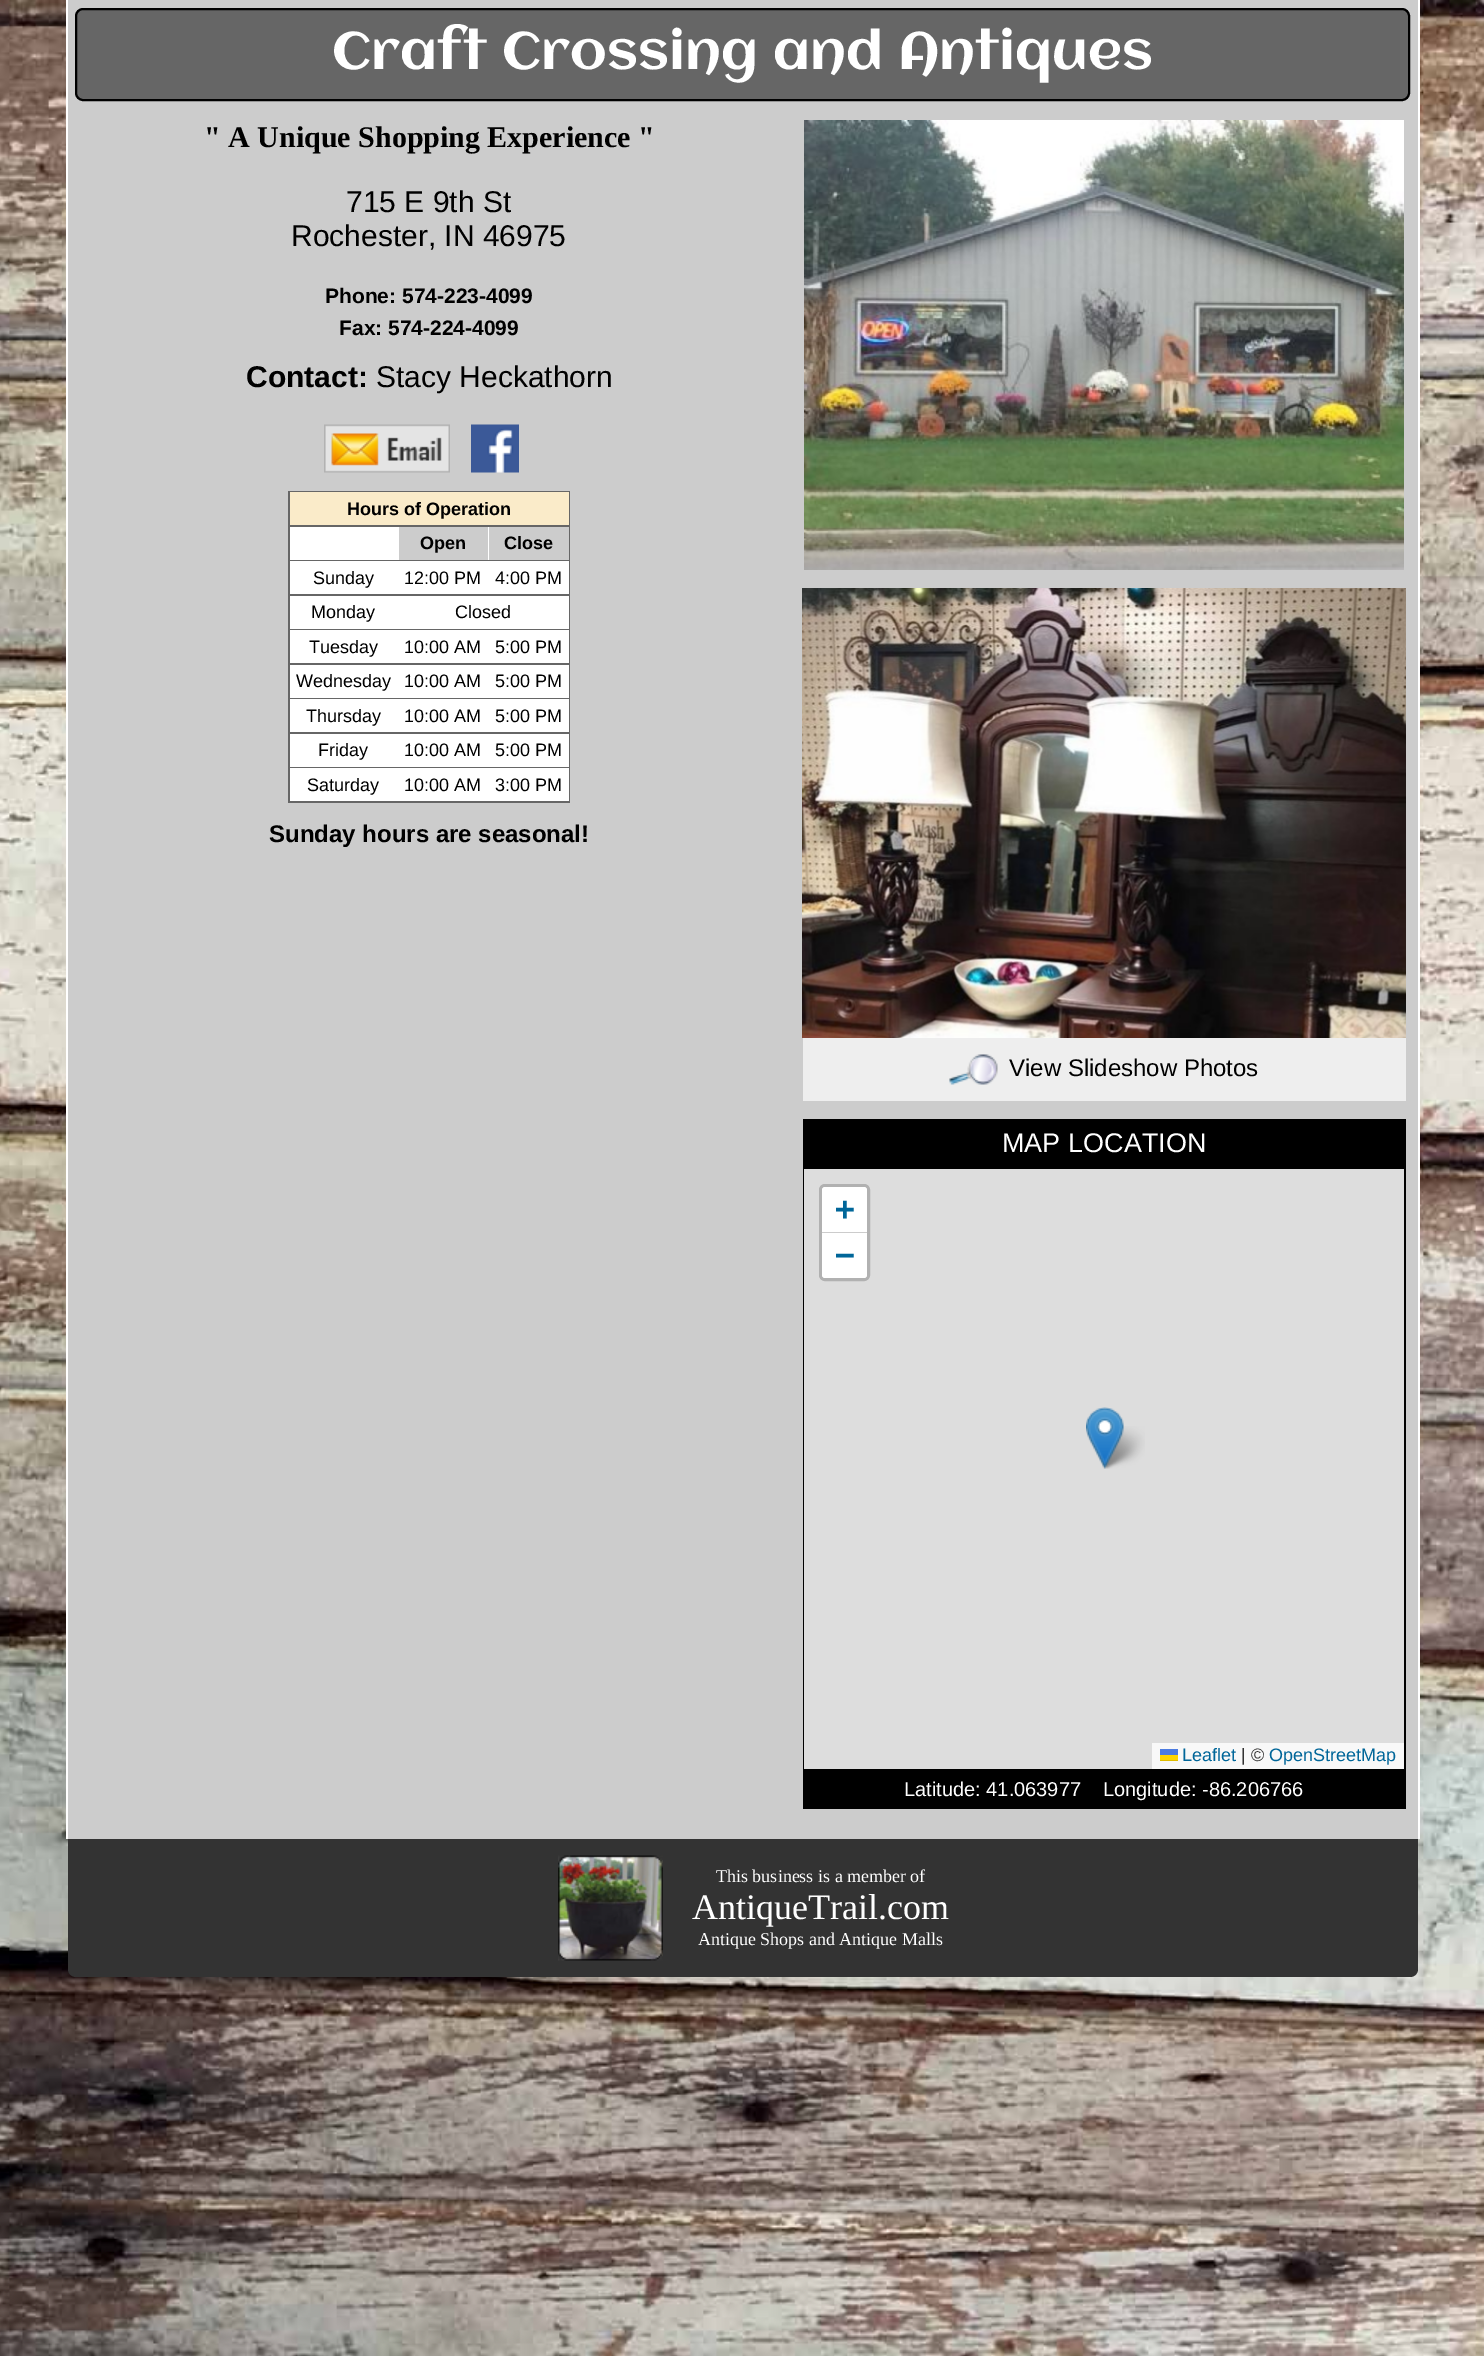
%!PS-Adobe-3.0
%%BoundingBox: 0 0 1484 2356
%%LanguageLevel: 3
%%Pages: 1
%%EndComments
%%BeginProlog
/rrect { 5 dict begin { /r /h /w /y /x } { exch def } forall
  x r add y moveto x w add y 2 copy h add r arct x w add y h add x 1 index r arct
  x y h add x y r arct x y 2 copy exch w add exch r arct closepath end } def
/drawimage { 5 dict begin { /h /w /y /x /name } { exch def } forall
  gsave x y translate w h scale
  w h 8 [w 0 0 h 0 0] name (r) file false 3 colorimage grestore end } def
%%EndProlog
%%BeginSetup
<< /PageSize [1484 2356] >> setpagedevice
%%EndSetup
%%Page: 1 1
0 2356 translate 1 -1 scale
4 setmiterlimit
1 setgray
0 0 1484 2356 rectfill
(images/1.raw) 0 0 1484 2356 drawimage
0.8 setgray
68 0 1350 1839 rectfill
1 setgray
1418 0 2 1839 rectfill
66 0 2 1839 rectfill
0.4 setgray
76 9 1333 91 7 rrect gsave fill grestore
0 setgray
2 setlinewidth
stroke
(images/2.raw) 324 424 126 49 drawimage
(images/3.raw) 471 424 48 49 drawimage
0.4 setgray
288 491 282 312 rectfill
0.98 0.922 0.788 setrgbcolor
290 492 279 33 rectfill
1 setgray
290 527 199 33 rectfill
0.8 setgray
399 527 89 33 rectfill
489 527 80 33 rectfill
1 setgray
290 561 279 33 rectfill
290 596 279 33 rectfill
290 630 279 33 rectfill
290 665 279 33 rectfill
290 699 279 33 rectfill
290 734 279 33 rectfill
290 768 279 33 rectfill
(images/4.raw) 804 120 600 450 drawimage
(images/5.raw) 802 588 604 450 drawimage
0.933 setgray
803 1038 603 63 rectfill
(images/6.raw) 949 1054 49 31 drawimage
0 setgray
803 1119 603 690 rectfill
0.867 setgray
804 1169 600 600 rectfill
0.694 setgray
3 setlinewidth
820.5 1185.5 48 94 4.5 rrect stroke
1 setgray
newpath 825 1187 moveto 864 1187 lineto 865.5 1187 867 1188.5 867 1190 curveto 867 1233 lineto 822 1233 lineto 822 1190 lineto 822 1188.5 823.5 1187 825 1187 curveto closepath fill
0.8 setgray
822 1232 45 1 rectfill
1 setgray
newpath 822 1233 moveto 867 1233 lineto 867 1275 lineto 867 1276.5 865.5 1278 864 1278 curveto 825 1278 lineto 823.5 1278 822 1276.5 822 1275 curveto closepath fill
0.973 setgray
1152 1743 252 26 rectfill
0.298 0.482 0.882 setrgbcolor
1160 1749 18 6 rectfill
1 0.835 0 setrgbcolor
1160 1755 18 5 rectfill
0.878 0.737 0 setrgbcolor
1160 1760 18 1 rectfill
(images/8.raw) 1099 1426 46 43 drawimage
(images/7.raw) 1086 1407 38 62 drawimage
0.2 setgray
newpath 68 1839 moveto 1418 1839 lineto 1418 1969 lineto 1418 1973.5 1414.5 1977 1410 1977 curveto 76 1977 lineto 71.5 1977 68 1973.5 68 1969 curveto closepath fill
(images/9.raw) 558 1855 105 106 drawimage
/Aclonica-Regular [52.5 0 0 -52.5 0 0] selectfont
1 setgray
332 69 moveto (Craft Crossing and Antiques) show
/LiberationSerif-Bold [30 0 0 -30 0 0] selectfont
0 setgray
204 147 moveto (" A Unique Shopping Experience ") show
/LiberationSans-Regular [30 0 0 -30 0 0] selectfont
346 212 moveto (715 E 9th St) show
291 246 moveto (Rochester, IN 46975) show
/LiberationSans-Bold [21 0 0 -21 0 0] selectfont
325 303 moveto (Phone: 574-223-4099) show
339 335 moveto (Fax: 574-224-4099) show
/LiberationSans-Bold [30 0 0 -30 0 0] selectfont
246 387 moveto (Contact:) show
/LiberationSans-Regular [30 0 0 -30 0 0] selectfont
376 387 moveto (Stacy Heckathorn) show
/LiberationSans-Bold [18 0 0 -18 0 0] selectfont
347 515 moveto (Hours of Operation) show
420 549 moveto (Open) show
504 549 moveto (Close) show
/LiberationSans-Regular [18 0 0 -18 0 0] selectfont
313 584 moveto (Sunday) show
404 584 moveto (12:00 PM) show
495 584 moveto (4:00 PM) show
311 618 moveto (Monday) show
455 618 moveto (Closed) show
309 653 moveto (Tuesday) show
404 653 moveto (10:00 AM) show
495 653 moveto (5:00 PM) show
296 687 moveto (Wednesday) show
404 687 moveto (10:00 AM) show
495 687 moveto (5:00 PM) show
306 722 moveto (Thursday) show
404 722 moveto (10:00 AM) show
495 722 moveto (5:00 PM) show
318 756 moveto (Friday) show
404 756 moveto (10:00 AM) show
495 756 moveto (5:00 PM) show
307 791 moveto (Saturday) show
404 791 moveto (10:00 AM) show
495 791 moveto (3:00 PM) show
/LiberationSans-Bold [24 0 0 -24 0 0] selectfont
269 842 moveto (Sunday hours are seasonal!) show
/LiberationSans-Regular [24 0 0 -24 0 0] selectfont
1009 1076 moveto (View Slideshow Photos) show
/LiberationSans-Regular [27 0 0 -27 0 0] selectfont
1 setgray
1002 1152 moveto (MAP LOCATION) show
/DejaVuSansMono-Bold [33 0 0 -33 0 0] selectfont
0 0.4 0.6 setrgbcolor
835 1220 moveto (+) show
835 1266 moveto (−) show
/LiberationSans-Regular [18 0 0 -18 0 0] selectfont
1182 1761 moveto (Leaflet) show
0.2 setgray
1241 1761 moveto (| ©) show
0 0.4 0.6 setrgbcolor
1269 1761 moveto (OpenStreetMap) show
/LiberationSans-Regular [20 0 0 -20 0 0] selectfont
1 setgray
904 1796 moveto (Latitude: 41.063977    Longitude: -86.206766) show
/LiberationSerif-Regular [18 0 0 -18 0 0] selectfont
716 1882 moveto (This business is a member of) show
/LiberationSerif-Regular [36 0 0 -36 0 0] selectfont
692 1919 moveto (AntiqueTrail.com) show
/LiberationSerif-Regular [18 0 0 -18 0 0] selectfont
698 1945 moveto (Antique Shops and Antique Malls) show
showpage
%%EOF
